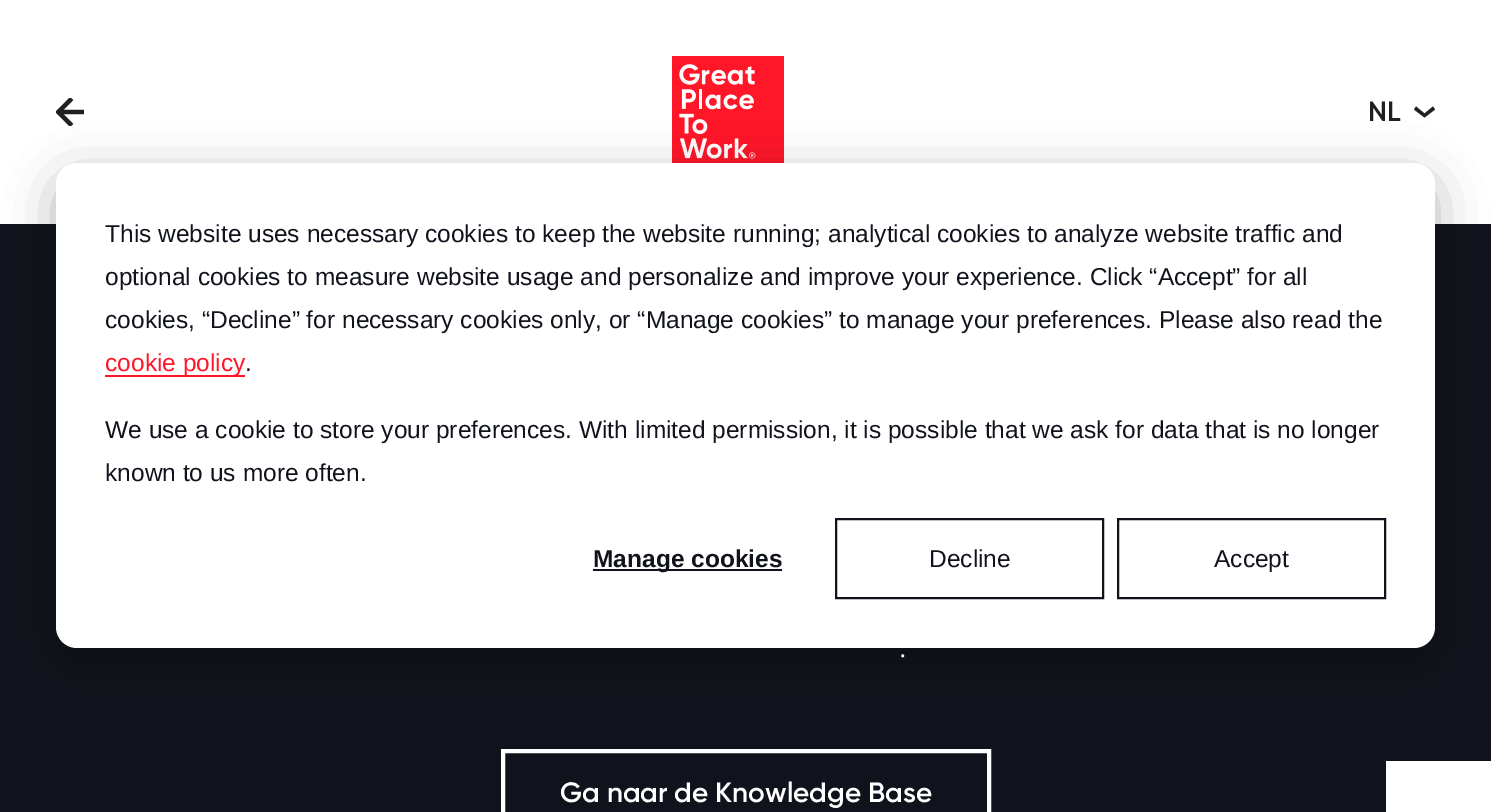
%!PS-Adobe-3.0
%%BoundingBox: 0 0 1491 812
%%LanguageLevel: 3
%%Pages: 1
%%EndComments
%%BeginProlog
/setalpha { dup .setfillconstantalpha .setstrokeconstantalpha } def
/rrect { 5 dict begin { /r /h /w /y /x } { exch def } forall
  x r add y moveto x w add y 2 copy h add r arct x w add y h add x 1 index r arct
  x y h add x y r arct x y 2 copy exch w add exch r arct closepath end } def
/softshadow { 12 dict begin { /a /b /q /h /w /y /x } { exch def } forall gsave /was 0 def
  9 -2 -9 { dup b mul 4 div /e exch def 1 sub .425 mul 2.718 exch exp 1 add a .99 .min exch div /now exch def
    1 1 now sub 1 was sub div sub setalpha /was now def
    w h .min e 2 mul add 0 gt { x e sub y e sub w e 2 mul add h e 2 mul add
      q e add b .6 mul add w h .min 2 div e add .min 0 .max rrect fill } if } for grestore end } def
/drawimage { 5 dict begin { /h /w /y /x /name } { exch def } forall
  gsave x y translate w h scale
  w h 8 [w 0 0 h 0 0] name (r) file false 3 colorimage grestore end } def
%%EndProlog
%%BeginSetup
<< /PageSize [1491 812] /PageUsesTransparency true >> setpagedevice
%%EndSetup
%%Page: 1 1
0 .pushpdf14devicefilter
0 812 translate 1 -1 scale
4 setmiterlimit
1 setgray
0 0 1491 812 rectfill
(images/1.raw) 56 98 28 28 drawimage
(images/2.raw) 672 56 112 107 drawimage
0.129 0.125 0.125 setrgbcolor
newpath 1414 109.5 moveto 1416 106.5 lineto 1424.5 113.5 lineto 1433 106.5 lineto 1435 109.5 lineto 1424.5 117.5 lineto closepath fill
0.067 0.075 0.11 setrgbcolor
0 224 1491 588 rectfill
1 setgray
4 setlinewidth
503 751 486 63 rectstroke
1386 761 105 51 rectfill
0 setgray
56 177 1379 485 21 24.5 0.28 softshadow
1 setgray
56 163 1379 485 21 rrect fill
1 0.086 0.157 setrgbcolor
105 375 140 2 rectfill
0.067 0.075 0.11 setrgbcolor
593 569 189 2 rectfill
2 setlinewidth
836 519 267 79 rectstroke
1118 519 267 79 rectstroke
/Gilroy-SemiBold [28 0 0 -28 0 0] selectfont
0.129 0.125 0.125 setrgbcolor
1368 121 moveto (NL) show
/Gilroy-Light [35 0 0 -35 0 0] selectfont
1 setgray
899 657 moveto (.) show
/Gilroy-SemiBold [28 0 0 -28 0 0] selectfont
560 802 moveto (Ga naar de Knowledge Base) show
/LiberationSans-Regular [24.5 0 0 -24.5 0 0] selectfont
0.067 0.075 0.11 setrgbcolor
105 242 moveto (This website uses necessary cookies to keep the website running; analytical cookies to analyze website traffic and) show
105 285 moveto (optional cookies to measure website usage and personalize and improve your experience. Click “Accept” for all) show
105 328 moveto (cookies, “Decline” for necessary cookies only, or “Manage cookies” to manage your preferences. Please also read the) show
1 0.086 0.157 setrgbcolor
105 371 moveto (cookie policy) show
0.067 0.075 0.11 setrgbcolor
245 371 moveto (.) show
105 438 moveto (We use a cookie to store your preferences. With limited permission, it is possible that we ask for data that is no longer) show
105 481 moveto (known to us more often.) show
/LiberationSans-Bold [24.5 0 0 -24.5 0 0] selectfont
593 567 moveto (Manage cookies) show
/LiberationSans-Regular [24.5 0 0 -24.5 0 0] selectfont
929 567 moveto (Decline) show
1214 567 moveto (Accept) show
.poppdf14devicefilter showpage
%%EOF
